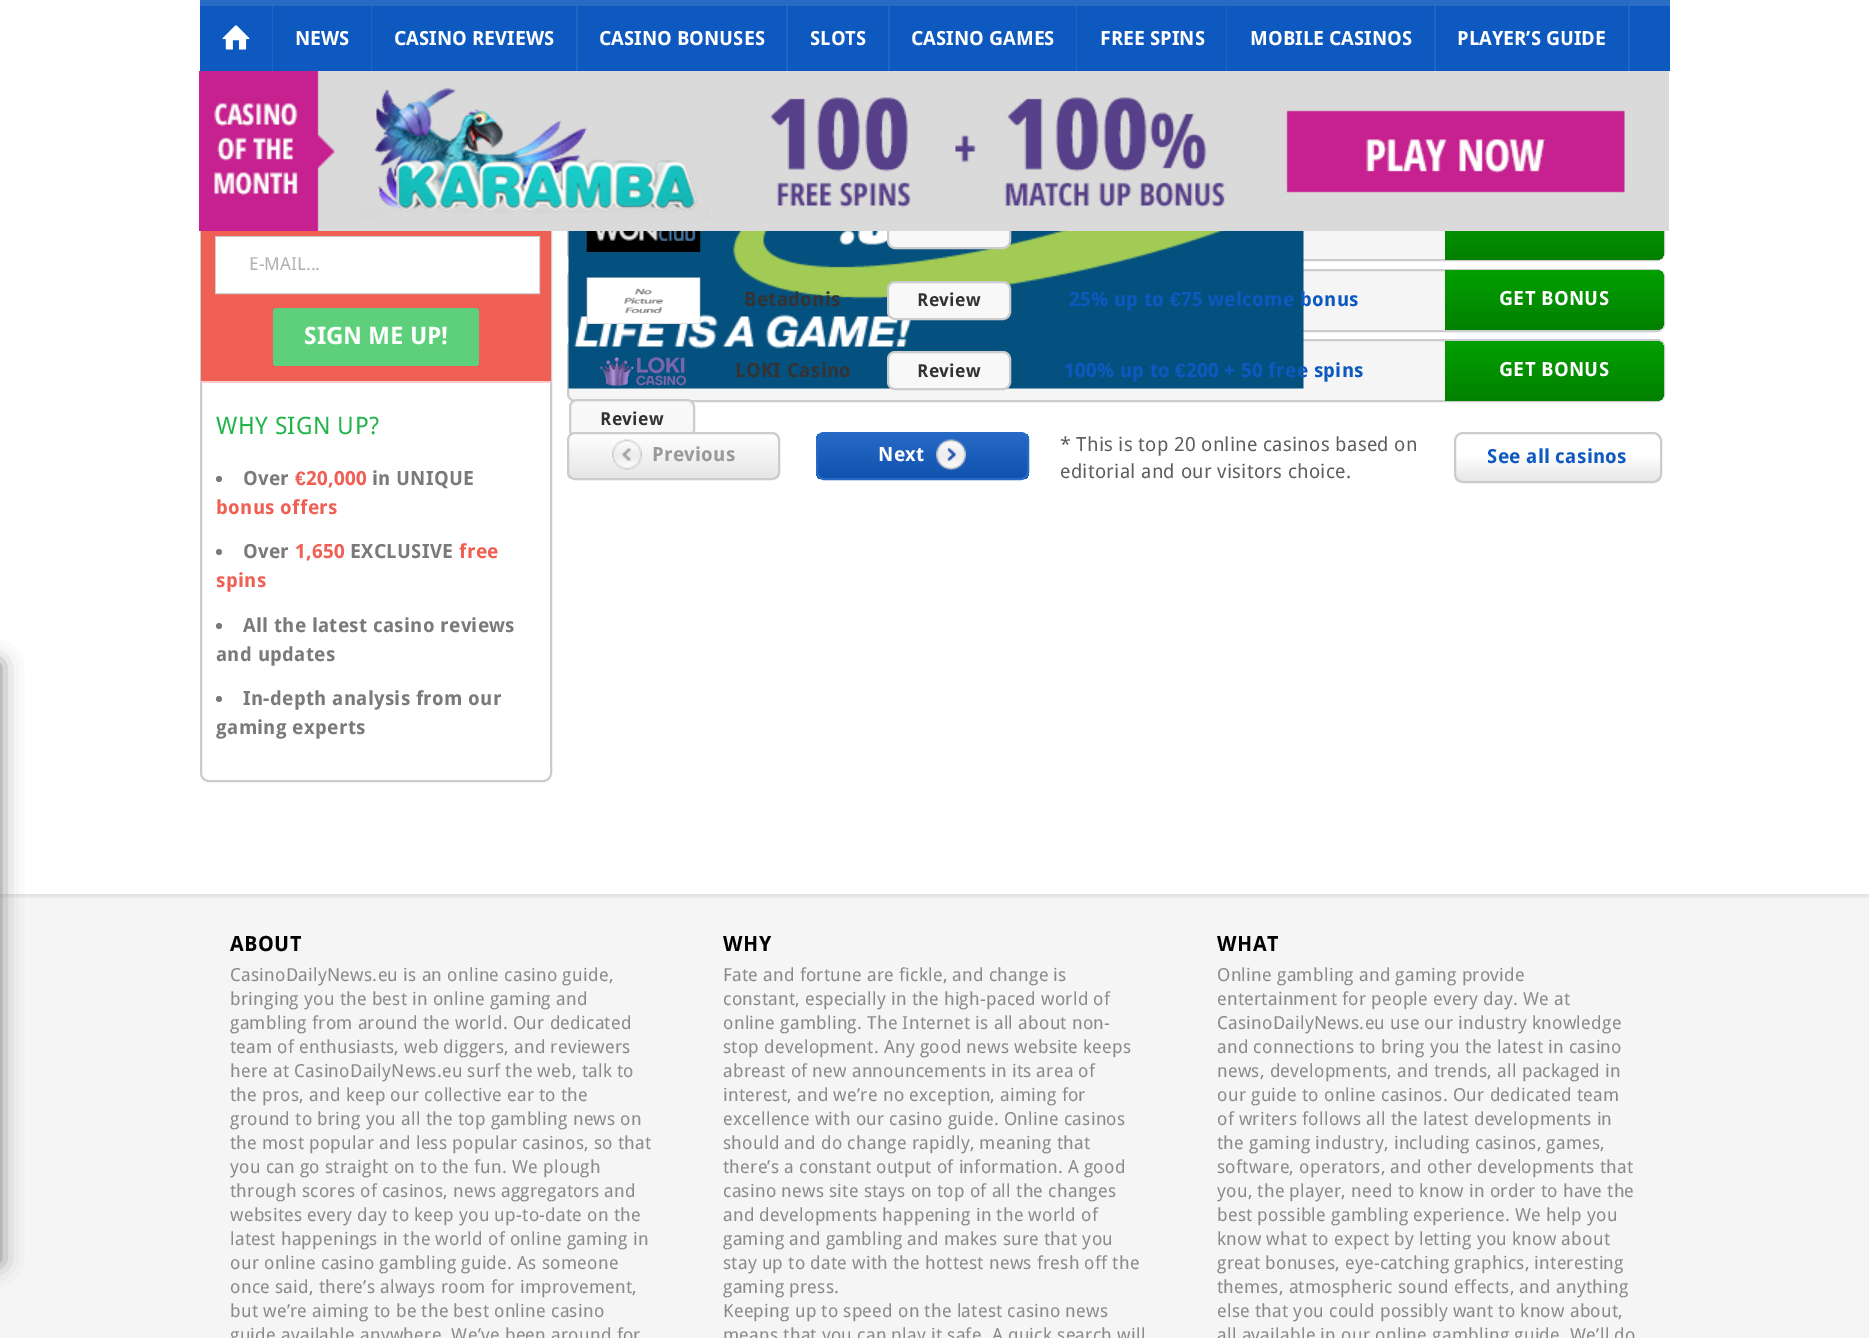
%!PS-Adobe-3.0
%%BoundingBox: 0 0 1869 1338
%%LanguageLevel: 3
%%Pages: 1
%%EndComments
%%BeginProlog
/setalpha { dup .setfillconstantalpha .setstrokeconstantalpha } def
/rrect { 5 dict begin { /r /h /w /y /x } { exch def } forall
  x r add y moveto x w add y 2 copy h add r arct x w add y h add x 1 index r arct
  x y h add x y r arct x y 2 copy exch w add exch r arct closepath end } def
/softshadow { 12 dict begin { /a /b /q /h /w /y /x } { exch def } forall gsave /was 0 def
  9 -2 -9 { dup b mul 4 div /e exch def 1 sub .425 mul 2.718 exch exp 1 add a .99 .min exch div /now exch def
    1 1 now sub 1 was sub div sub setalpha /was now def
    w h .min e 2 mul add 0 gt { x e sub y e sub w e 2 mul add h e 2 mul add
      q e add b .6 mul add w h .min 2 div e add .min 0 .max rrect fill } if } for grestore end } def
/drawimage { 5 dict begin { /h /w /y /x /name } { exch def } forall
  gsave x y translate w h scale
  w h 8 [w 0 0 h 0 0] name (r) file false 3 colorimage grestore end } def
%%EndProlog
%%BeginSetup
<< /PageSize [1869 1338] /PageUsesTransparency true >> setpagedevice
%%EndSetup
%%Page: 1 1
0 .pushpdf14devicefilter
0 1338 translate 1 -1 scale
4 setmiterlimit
1 setgray
0 0 1869 1338 rectfill
0.173 0.431 0.776 setrgbcolor
1629 0 41 6 rectfill
0.8 setgray
2 setlinewidth
201 58 350 723 8 rrect stroke
0.055 0.349 0.749 setrgbcolor
200 6 1470 65 rectfill
0.122 0.396 0.765 setrgbcolor
272 6 1 65 rectfill
0.157 0.42 0.773 setrgbcolor
200 0 1429 6 rectfill
(images/1.raw) 222 25 28 25 drawimage
0.122 0.396 0.765 setrgbcolor
371 6 1 65 rectfill
576 6 2 65 rectfill
786 6 2 65 rectfill
888 6 2 65 rectfill
1076 6 1 65 rectfill
1226 6 1 65 rectfill
1434 6 2 65 rectfill
1628 6 2 65 rectfill
0.961 setgray
568 199 1096 61 7 rrect gsave fill grestore
0.8 setgray
stroke
0.961 setgray
568 270 1096 61 7 rrect gsave fill grestore
0.8 setgray
stroke
0.961 setgray
568 340 1096 61 7 rrect gsave fill grestore
0.8 setgray
stroke
(images/6.raw) 568 231 736 158 drawimage
0.973 setgray
888 211 122 37 7 rrect gsave fill grestore
0.8 setgray
stroke
gsave newpath 1445 200 moveto 1656 200 lineto 1660.5 200 1664 203.5 1664 208 curveto 1664 252 lineto 1664 256.5 1660.5 260 1656 260 curveto 1445 260 lineto closepath clip newpath
<< /ShadingType 2 /ColorSpace /DeviceRGB /Coords [1554 200 1554 260] /Extend [true true] /Function << /FunctionType 2 /Domain [0 1] /C0 [0.012 0.627 0] /C1 [0.008 0.502 0] /N 1 >> >> shfill grestore
(images/2.raw) 199 71 1470 160 drawimage
0.937 0.373 0.325 setrgbcolor
201 231 350 150 rectfill
0.98 0.804 0.792 setrgbcolor
201 381 350 2 rectfill
0.808 setgray
216 237 323 56 rectstroke
1 setgray
216 237 323 56 rectfill
0.369 0.816 0.482 setrgbcolor
273 308 206 58 3 rrect fill
0.478 setgray
newpath 219 479 3 0 360 arc closepath fill
newpath 219 552 3 0 360 arc closepath fill
newpath 219 626 3 0 360 arc closepath fill
newpath 219 699 3 0 360 arc closepath fill
(images/3.raw) 586 231 115 21 drawimage
(images/4.raw) 586 277 115 47 drawimage
0.973 setgray
888 282 122 37 7 rrect gsave fill grestore
0.8 setgray
stroke
gsave newpath 1445 270 moveto 1656 270 lineto 1660.5 270 1664 273.5 1664 278 curveto 1664 322 lineto 1664 326.5 1660.5 330 1656 330 curveto 1445 330 lineto closepath clip newpath
<< /ShadingType 2 /ColorSpace /DeviceRGB /Coords [1554 270 1554 330] /Extend [true true] /Function << /FunctionType 2 /Domain [0 1] /C0 [0.012 0.627 0] /C1 [0.008 0.502 0] /N 1 >> >> shfill grestore
(images/5.raw) 600 357 86 29 drawimage
0.973 setgray
888 352 122 37 7 rrect gsave fill grestore
0.8 setgray
stroke
gsave newpath 1445 341 moveto 1656 341 lineto 1660.5 341 1664 344.5 1664 349 curveto 1664 393 lineto 1664 397.5 1660.5 401 1656 401 curveto 1445 401 lineto closepath clip newpath
<< /ShadingType 2 /ColorSpace /DeviceRGB /Coords [1554 341 1554 401] /Extend [true true] /Function << /FunctionType 2 /Domain [0 1] /C0 [0.012 0.627 0] /C1 [0.008 0.502 0] /N 1 >> >> shfill grestore
0.973 setgray
570 400 124 37 7 rrect gsave fill grestore
0.8 setgray
stroke
gsave
567 432 213 48 8 rrect clip newpath
gsave newpath 567 434 moveto 780 434 lineto 780 479 lineto 567 479 lineto closepath clip newpath
<< /ShadingType 2 /ColorSpace /DeviceRGB /Coords [674 434 674 479] /Extend [true true] /Function << /FunctionType 3 /Domain [0 1] /Functions [<< /FunctionType 2 /Domain [0 1] /C0 [0.996 0.996 0.996] /C1 [0.996 0.996 0.996] /N 1 >> << /FunctionType 2 /Domain [0 1] /C0 [0.996 0.996 0.996] /C1 [0.902 0.902 0.902] /N 1 >>] /Bounds [0.01] /Encode [0 1 0 1] >> >> shfill grestore
grestore
568 433 211 46 7 rrect stroke
(images/7.raw) 612 439 30 31 drawimage
gsave
816 432 213 48 8 rrect clip newpath
gsave newpath 816 434 moveto 1029 434 lineto 1029 479 lineto 816 479 lineto closepath clip newpath
<< /ShadingType 2 /ColorSpace /DeviceRGB /Coords [923 434 923 479] /Extend [true true] /Function << /FunctionType 2 /Domain [0 1] /C0 [0.149 0.416 0.773] /C1 [0.055 0.322 0.678] /N 1 >> >> shfill grestore
grestore
0.149 0.416 0.773 setrgbcolor
817 433 211 46 7 rrect stroke
(images/8.raw) 936 439 30 31 drawimage
gsave
1454 432 208 51 9 rrect clip newpath
gsave newpath 1454 434 moveto 1662 434 lineto 1662 482 lineto 1454 482 lineto closepath clip newpath
<< /ShadingType 2 /ColorSpace /DeviceRGB /Coords [1558 434 1558 482] /Extend [true true] /Function << /FunctionType 3 /Domain [0 1] /Functions [<< /FunctionType 2 /Domain [0 1] /C0 [1 1 1] /C1 [1 1 1] /N 1 >> << /FunctionType 2 /Domain [0 1] /C0 [1 1 1] /C1 [0.902 0.902 0.902] /N 1 >>] /Bounds [0.42] /Encode [0 1 0 1] >> >> shfill grestore
grestore
0.8 setgray
1455 433 206 49 8 rrect stroke
0.961 setgray
0 898 1869 440 rectfill
(images/9.raw) 0 894 1869 4 drawimage
0.467 setgray
-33 663 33 600 0 11 1 softshadow
/DroidSans-Bold [19.5 0 0 -19.5 0 0] selectfont
1 setgray
295 45 moveto (NEWS) show
394 45 moveto (CASINO REVIEWS) show
599 45 moveto (CASINO BONUSES) show
810 45 moveto (SLOTS) show
911 45 moveto (CASINO GAMES) show
1100 45 moveto (FREE SPINS) show
1250 45 moveto (MOBILE CASINOS) show
1457 45 moveto (PLAYER’S GUIDE) show
/DroidSans-Regular [18 0 0 -18 0 0] selectfont
0.698 setgray
249 270 moveto (E-MAIL...) show
/DroidSans-Bold [24 0 0 -24 0 0] selectfont
1 setgray
304 344 moveto (SIGN ME UP!) show
/DroidSans-Regular [24 0 0 -24 0 0] selectfont
0.137 0.71 0.29 setrgbcolor
216 434 moveto 0.4 0 (WHY SIGN UP?) ashow
/DroidSans-Bold [19.5 0 0 -19.5 0 0] selectfont
0.478 setgray
243 485 moveto 0.3 0 (Over) ashow
/LiberationSans-Bold [19.5 0 0 -19.5 0 0] selectfont
0.937 0.373 0.325 setrgbcolor
295 485 moveto 0.3 0 (€) ashow
/DroidSans-Bold [19.5 0 0 -19.5 0 0] selectfont
306 485 moveto 0.3 0 (20,000) ashow
0.478 setgray
372 485 moveto 0.3 0 (in UNIQUE) ashow
0.937 0.373 0.325 setrgbcolor
216 514 moveto 0.3 0 (bonus offers) ashow
0.478 setgray
243 558 moveto 0.3 0 (Over) ashow
0.937 0.373 0.325 setrgbcolor
295 558 moveto 0.3 0 (1,650) ashow
0.478 setgray
350 558 moveto 0.3 0 (EXCLUSIVE) ashow
0.937 0.373 0.325 setrgbcolor
459 558 moveto 0.3 0 (free) ashow
216 587 moveto 0.3 0 (spins) ashow
0.478 setgray
243 632 moveto 0.3 0 (All the latest casino reviews) ashow
216 661 moveto 0.3 0 (and updates) ashow
243 705 moveto 0.3 0 (In-depth analysis from our) ashow
216 734 moveto 0.3 0 (gaming experts) ashow
0.2 setgray
744 306 moveto 0.3 0 (Betadonis) ashow
/DroidSans-Bold [18 0 0 -18 0 0] selectfont
917 306 moveto 0.27 0 (Review) ashow
/DroidSans-Bold [19.5 0 0 -19.5 0 0] selectfont
0.055 0.349 0.749 setrgbcolor
1069 306 moveto 0.3 0 (25% up to) ashow
/LiberationSans-Bold [19.5 0 0 -19.5 0 0] selectfont
1170 306 moveto 0.3 0 (€) ashow
/DroidSans-Bold [19.5 0 0 -19.5 0 0] selectfont
1181 306 moveto 0.3 0 (75 welcome bonus) ashow
1 setgray
1499 305 moveto 0.3 0 (GET BONUS) ashow
0.2 setgray
735 377 moveto 0.3 0 (LOKI Casino) ashow
/DroidSans-Bold [18 0 0 -18 0 0] selectfont
917 377 moveto 0.27 0 (Review) ashow
/DroidSans-Bold [19.5 0 0 -19.5 0 0] selectfont
0.055 0.349 0.749 setrgbcolor
1064 377 moveto 0.3 0 (100% up to) ashow
/LiberationSans-Bold [19.5 0 0 -19.5 0 0] selectfont
1175 377 moveto 0.3 0 (€) ashow
/DroidSans-Bold [19.5 0 0 -19.5 0 0] selectfont
1186 377 moveto 0.3 0 (200 + 50 free spins) ashow
1 setgray
1499 376 moveto 0.3 0 (GET BONUS) ashow
/DroidSans-Bold [18 0 0 -18 0 0] selectfont
0.2 setgray
600 425 moveto 0.27 0 (Review) ashow
/DroidSans-Bold [19.5 0 0 -19.5 0 0] selectfont
0.6 setgray
652 461 moveto 0.3 0 (Previous) ashow
1 setgray
878 461 moveto 0.3 0 (Next) ashow
/DroidSans-Regular [19.5 0 0 -19.5 0 0] selectfont
0.369 setgray
1060 451 moveto 0.3 0 (* This is top 20 online casinos based on) ashow
1060 478 moveto 0.3 0 (editorial and our visitors choice.) ashow
/DroidSans-Bold [19.5 0 0 -19.5 0 0] selectfont
0.055 0.349 0.749 setrgbcolor
1487 463 moveto 0.3 0 (See all casinos) ashow
/DroidSans-Bold [21 0 0 -21 0 0] selectfont
0 setgray
230 951 moveto 0.5 0 (ABOUT) ashow
/DroidSans-Regular [18 0 0 -18 0 0] selectfont
0.541 setgray
230 981 moveto 0.27 0 (CasinoDailyNews.eu is an online casino guide,) ashow
230 1005 moveto 0.27 0 (bringing you the best in online gaming and) ashow
230 1029 moveto 0.27 0 (gambling from around the world. Our dedicated) ashow
230 1053 moveto 0.27 0 (team of enthusiasts, web diggers, and reviewers) ashow
230 1077 moveto 0.27 0 (here at CasinoDailyNews.eu surf the web, talk to) ashow
230 1101 moveto 0.27 0 (the pros, and keep our collective ear to the) ashow
230 1125 moveto 0.27 0 (ground to bring you all the top gambling news on) ashow
230 1149 moveto 0.27 0 (the most popular and less popular casinos, so that) ashow
230 1173 moveto 0.27 0 (you can go straight on to the fun. We plough) ashow
230 1197 moveto 0.27 0 (through scores of casinos, news aggregators and) ashow
230 1221 moveto 0.27 0 (websites every day to keep you up-to-date on the) ashow
230 1245 moveto 0.27 0 (latest happenings in the world of online gaming in) ashow
230 1269 moveto 0.27 0 (our online casino gambling guide. As someone) ashow
230 1293 moveto 0.27 0 (once said, there’s always room for improvement,) ashow
230 1317 moveto 0.27 0 (but we’re aiming to be the best online casino) ashow
230 1341 moveto 0.27 0 (guide available anywhere. We’ve been around for) ashow
/DroidSans-Bold [21 0 0 -21 0 0] selectfont
0 setgray
723 951 moveto 0.5 0 (WHY) ashow
/DroidSans-Regular [18 0 0 -18 0 0] selectfont
0.541 setgray
723 981 moveto 0.27 0 (Fate and fortune are fickle, and change is) ashow
723 1005 moveto 0.27 0 (constant, especially in the high-paced world of) ashow
723 1029 moveto 0.27 0 (online gambling. The Internet is all about non-) ashow
723 1053 moveto 0.27 0 (stop development. Any good news website keeps) ashow
723 1077 moveto 0.27 0 (abreast of new announcements in its area of) ashow
723 1101 moveto 0.27 0 (interest, and we’re no exception, aiming for) ashow
723 1125 moveto 0.27 0 (excellence with our casino guide. Online casinos) ashow
723 1149 moveto 0.27 0 (should and do change rapidly, meaning that) ashow
723 1173 moveto 0.27 0 (there’s a constant output of information. A good) ashow
723 1197 moveto 0.27 0 (casino news site stays on top of all the changes) ashow
723 1221 moveto 0.27 0 (and developments happening in the world of) ashow
723 1245 moveto 0.27 0 (gaming and gambling and makes sure that you) ashow
723 1269 moveto 0.27 0 (stay up to date with the hottest news fresh off the) ashow
723 1293 moveto 0.27 0 (gaming press.) ashow
723 1317 moveto 0.27 0 (Keeping up to speed on the latest casino news) ashow
723 1341 moveto 0.27 0 (means that you can play it safe. A quick search will) ashow
/DroidSans-Bold [21 0 0 -21 0 0] selectfont
0 setgray
1217 951 moveto 0.5 0 (WHAT) ashow
/DroidSans-Regular [18 0 0 -18 0 0] selectfont
0.541 setgray
1217 981 moveto 0.27 0 (Online gambling and gaming provide) ashow
1217 1005 moveto 0.27 0 (entertainment for people every day. We at) ashow
1217 1029 moveto 0.27 0 (CasinoDailyNews.eu use our industry knowledge) ashow
1217 1053 moveto 0.27 0 (and connections to bring you the latest in casino) ashow
1217 1077 moveto 0.27 0 (news, developments, and trends, all packaged in) ashow
1217 1101 moveto 0.27 0 (our guide to online casinos. Our dedicated team) ashow
1217 1125 moveto 0.27 0 (of writers follows all the latest developments in) ashow
1217 1149 moveto 0.27 0 (the gaming industry, including casinos, games,) ashow
1217 1173 moveto 0.27 0 (software, operators, and other developments that) ashow
1217 1197 moveto 0.27 0 (you, the player, need to know in order to have the) ashow
1217 1221 moveto 0.27 0 (best possible gambling experience. We help you) ashow
1217 1245 moveto 0.27 0 (know what to expect by letting you know about) ashow
1217 1269 moveto 0.27 0 (great bonuses, eye-catching graphics, interesting) ashow
1217 1293 moveto 0.27 0 (themes, atmospheric sound effects, and anything) ashow
1217 1317 moveto 0.27 0 (else that you could possibly want to know about,) ashow
1217 1341 moveto 0.27 0 (all available in our online gambling guide. We’ll do) ashow
.poppdf14devicefilter showpage
%%EOF
